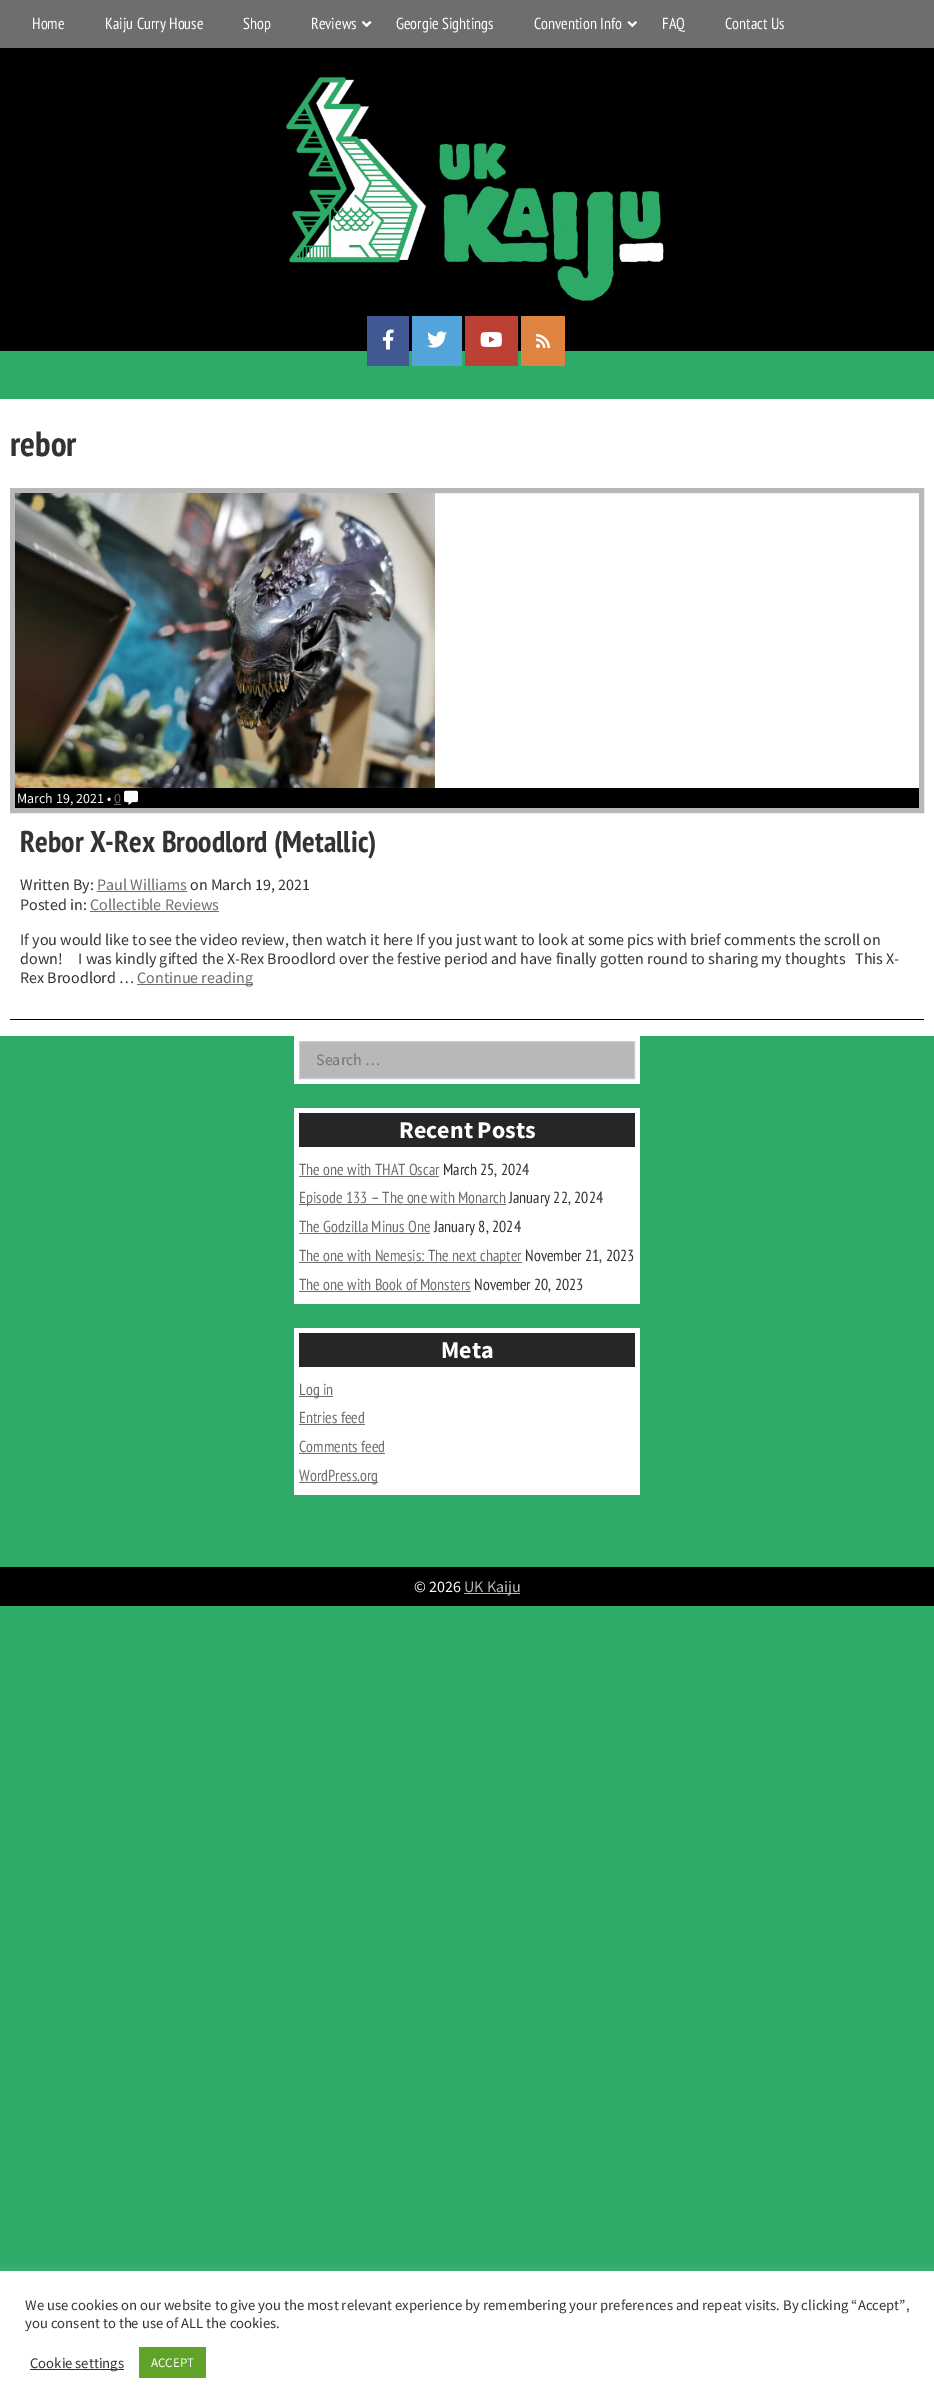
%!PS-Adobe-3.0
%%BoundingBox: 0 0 934 2408
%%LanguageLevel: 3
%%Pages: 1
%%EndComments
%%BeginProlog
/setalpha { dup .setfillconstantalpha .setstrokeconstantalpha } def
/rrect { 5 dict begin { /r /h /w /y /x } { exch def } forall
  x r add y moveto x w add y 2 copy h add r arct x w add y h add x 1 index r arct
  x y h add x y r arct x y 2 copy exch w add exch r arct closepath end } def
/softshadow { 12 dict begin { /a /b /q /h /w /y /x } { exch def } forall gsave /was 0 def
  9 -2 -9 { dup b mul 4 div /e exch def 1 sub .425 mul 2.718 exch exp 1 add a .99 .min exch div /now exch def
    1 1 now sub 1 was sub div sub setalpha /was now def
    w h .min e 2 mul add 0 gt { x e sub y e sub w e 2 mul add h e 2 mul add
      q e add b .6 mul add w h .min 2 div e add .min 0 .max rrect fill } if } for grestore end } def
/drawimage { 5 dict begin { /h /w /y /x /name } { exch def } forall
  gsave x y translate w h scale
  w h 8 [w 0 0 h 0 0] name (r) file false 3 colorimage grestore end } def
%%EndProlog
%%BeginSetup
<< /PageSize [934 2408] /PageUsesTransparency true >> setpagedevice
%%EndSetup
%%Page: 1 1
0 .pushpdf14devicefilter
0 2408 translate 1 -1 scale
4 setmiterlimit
0.18 0.671 0.408 setrgbcolor
0 0 934 2408 rectfill
0 setgray
0 48 934 303 rectfill
0.431 setgray
0 0 934 48 rectfill
1 setgray
newpath 370 21 moveto 371.5 22.5 lineto 366.5 27 lineto 365 25.5 lineto closepath fill
newpath 363 21 moveto 368 25.5 lineto 366.5 27 lineto 362 22.5 lineto closepath fill
newpath 635.5 21 moveto 637 22.5 lineto 632.5 27 lineto 631 25.5 lineto closepath fill
newpath 629 21 moveto 633.5 25.5 lineto 632.5 27 lineto 627.5 22.5 lineto closepath fill
(images/1.raw) 286 77 378 224 drawimage
0.255 0.345 0.576 setrgbcolor
367 316 42 50 rectfill
(images/2.raw) 382 329 12 21 drawimage
0.325 0.643 0.855 setrgbcolor
412 316 50 50 rectfill
(images/3.raw) 427 331 20 17 drawimage
0.737 0.251 0.204 setrgbcolor
465 316 53 50 rectfill
(images/4.raw) 480 332 22 15 drawimage
0.871 0.518 0.251 setrgbcolor
521 316 44 50 rectfill
(images/5.raw) 536 334 14 14 drawimage
1 setgray
0 399 934 637 rectfill
0 setgray
10 1019 914 1 rectfill
0.722 setgray
5 setlinewidth
12.5 490.5 909 320 rectstroke
(images/6.raw) 15 493 420 295 drawimage
0 setgray
15 788 904 20 rectfill
0.431 setgray
114 804 7 1 rectfill
(images/7.raw) 124 790 14 15 drawimage
97 891 90 1 rectfill
90 911 129 1 rectfill
137 984 116 1 rectfill
1 setgray
294 1036 346 48 rectfill
0.722 setgray
newpath 299.5 1041.5 moveto 634.5 1041.5 lineto 634.5 1078.5 lineto 299.5 1078.5 lineto closepath gsave fill grestore
0.8 setgray
1 setlinewidth
stroke
1 setgray
294 1108 346 196 rectfill
0.149 setgray
299 1113 336 34 rectfill
0.431 setgray
299 1176 140 1 rectfill
299 1204 207 1 rectfill
299 1233 131 1 rectfill
299 1262 223 1 rectfill
299 1291 172 1 rectfill
1 setgray
294 1328 346 167 rectfill
0.149 setgray
299 1333 336 34 rectfill
0.431 setgray
299 1396 34 1 rectfill
299 1424 66 1 rectfill
299 1453 86 1 rectfill
299 1482 79 1 rectfill
0 setgray
0 1567 934 39 rectfill
0.722 setgray
464 1593 56 1 rectfill
0.675 0.671 0.671 setrgbcolor
0 2270 934 137 0 5 0.3 softshadow
1 setgray
0 2271 934 137 rectfill
0.2 setgray
30 2369 94 1 rectfill
0.38 0.635 0.161 setrgbcolor
139 2347 67 31 rectfill
/PTSansNarrow-Regular [16 0 0 -16 0 0] selectfont
1 setgray
32 29 moveto (Home) show
105 29 moveto (Kaiju Curry House) show
243 29 moveto (Shop) show
311 29 moveto (Reviews) show
396 29 moveto (Georgie Sightings) show
534 29 moveto (Convention Info) show
662 29 moveto (FAQ) show
725 29 moveto (Contact Us) show
/PTSansNarrow-Bold [35 0 0 -35 0 0] selectfont
0.2 setgray
10 456 moveto (rebor) show
/SourceSansPro-Regular [14 0 0 -14 0 0] selectfont
1 setgray
17 803 moveto (March 19, 2021 •) show
0.431 setgray
114 803 moveto (0) show
/PTSansNarrow-Bold [30 0 0 -30 0 0] selectfont
0.2 setgray
20 852 moveto (Rebor X-Rex Broodlord \(Metallic\)) show
/SourceSansPro-Regular [16 0 0 -16 0 0] selectfont
20 890 moveto (Written By:) show
0.431 setgray
97 890 moveto (Paul Williams) show
0.2 setgray
190 890 moveto (on March 19, 2021) show
20 910 moveto (Posted in:) show
0.431 setgray
90 910 moveto (Collectible Reviews) show
0.2 setgray
20 945 moveto (If you would like to see the video review, then watch it here If you just want to look at some pics with brief comments the scroll on) show
20 964 moveto (down!     I was kindly gifted the X-Rex Broodlord over the festive period and have finally gotten round to sharing my thoughts   This X-) show
20 983 moveto (Rex Broodlord …) show
0.431 setgray
137 983 moveto (Continue reading) show
0.459 setgray
316 1065 moveto (Search …) show
/SourceSansPro-Bold [24 0 0 -24 0 0] selectfont
1 setgray
399 1138 moveto (Recent Posts) show
/PTSansNarrow-Regular [16 0 0 -16 0 0] selectfont
0.431 setgray
299 1175 moveto (The one with THAT Oscar) show
0.2 setgray
443 1175 moveto (March 25, 2024) show
0.431 setgray
299 1203 moveto (Episode 133 – The one with Monarch) show
0.2 setgray
509 1203 moveto (January 22, 2024) show
0.431 setgray
299 1232 moveto (The Godzilla Minus One) show
0.2 setgray
434 1232 moveto (January 8, 2024) show
0.431 setgray
299 1261 moveto (The one with Nemesis: The next chapter) show
0.2 setgray
525 1261 moveto (November 21, 2023) show
0.431 setgray
299 1290 moveto (The one with Book of Monsters) show
0.2 setgray
474 1290 moveto (November 20, 2023) show
/SourceSansPro-Bold [24 0 0 -24 0 0] selectfont
1 setgray
441 1358 moveto (Meta) show
/PTSansNarrow-Regular [16 0 0 -16 0 0] selectfont
0.431 setgray
299 1395 moveto (Log in) show
299 1423 moveto (Entries feed) show
299 1452 moveto (Comments feed) show
299 1481 moveto (WordPress.org) show
/SourceSansPro-Regular [16 0 0 -16 0 0] selectfont
1 setgray
414 1592 moveto (© 2026) show
0.722 setgray
464 1592 moveto (UK Kaiju) show
/SourceSansPro-Regular [14.67 0 0 -14.67 0 0] selectfont
0.2 setgray
25 2310 moveto (We use cookies on our website to give you the most relevant experience by remembering your preferences and repeat visits. By clicking “Accept”,) show
25 2328 moveto (you consent to the use of ALL the cookies.) show
30 2368 moveto (Cookie settings) show
/SourceSansPro-Regular [13 0 0 -13 0 0] selectfont
1 setgray
151 2367 moveto (ACCEPT) show
.poppdf14devicefilter showpage
%%EOF
